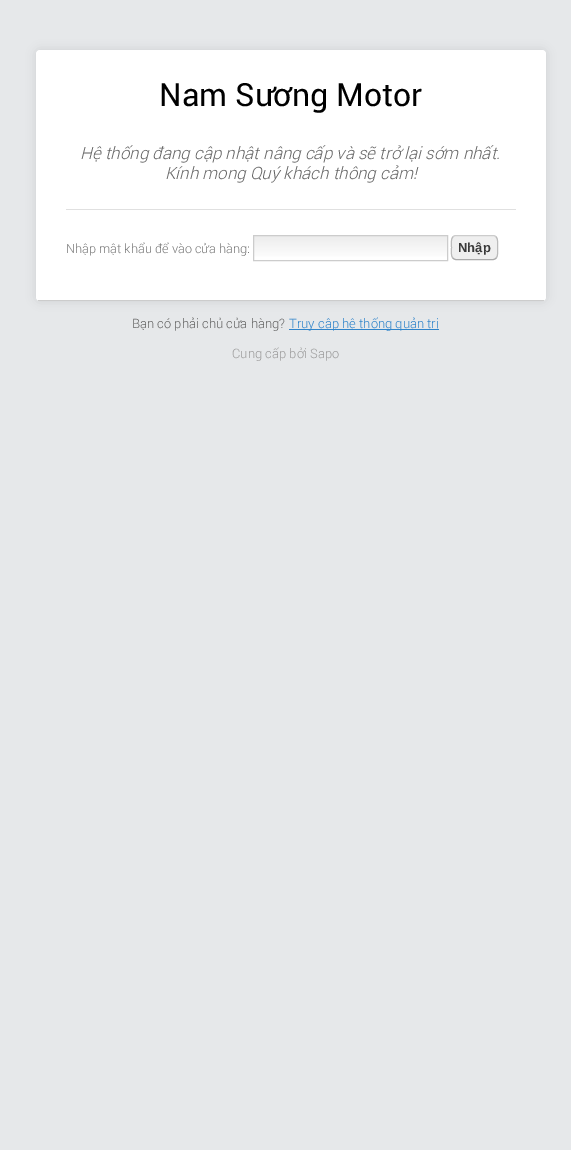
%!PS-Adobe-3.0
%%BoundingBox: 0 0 571 1150
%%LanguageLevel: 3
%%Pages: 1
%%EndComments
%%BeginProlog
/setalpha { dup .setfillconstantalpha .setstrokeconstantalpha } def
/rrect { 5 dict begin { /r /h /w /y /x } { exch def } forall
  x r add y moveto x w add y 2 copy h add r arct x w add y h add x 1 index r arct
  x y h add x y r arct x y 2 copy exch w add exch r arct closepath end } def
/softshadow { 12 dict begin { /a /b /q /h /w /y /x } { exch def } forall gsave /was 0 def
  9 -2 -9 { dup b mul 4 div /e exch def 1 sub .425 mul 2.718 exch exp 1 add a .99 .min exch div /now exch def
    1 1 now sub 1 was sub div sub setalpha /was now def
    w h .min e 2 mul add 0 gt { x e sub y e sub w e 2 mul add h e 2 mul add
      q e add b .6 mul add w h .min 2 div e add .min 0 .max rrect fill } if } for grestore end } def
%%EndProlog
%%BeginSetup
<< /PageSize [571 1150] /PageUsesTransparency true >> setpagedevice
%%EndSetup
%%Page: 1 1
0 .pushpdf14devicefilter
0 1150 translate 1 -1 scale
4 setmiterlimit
0.902 0.91 0.918 setrgbcolor
0 0 571 1150 rectfill
0 setgray
36 50 510 251 4 5 0.1 softshadow
1 setgray
36 50 510 251 4 rrect fill
0.8 setgray
38 300 506 1 rectfill
0.878 setgray
66 209 450 1 rectfill
gsave newpath 254 236 moveto 447 236 lineto 447 257 lineto 254 257 lineto closepath clip newpath
<< /ShadingType 2 /ColorSpace /DeviceRGB /Coords [254 236 254 260] /Extend [true true] /Function << /FunctionType 2 /Domain [0 1] /C0 [0.925 0.925 0.925] /C1 [1 1 1] /N 1 >> >> shfill grestore
0.8 setgray
253.5 235.5 194 25 rectstroke
0.937 setgray
451 235 47 25 5 rrect fill
0.8 setgray
newpath 453 237 moveto 453.5 236 455 235.5 456 235.5 curveto 493 235.5 lineto 494 235.5 495.5 236 496 237 curveto stroke
0.733 setgray
newpath 496 237 moveto 498.5 239 497.5 244.5 497.5 247.5 curveto 497.5 250.5 498.5 256 496 258 curveto stroke
0.667 setgray
newpath 496 258 moveto 495.5 259 494 259.5 493 259.5 curveto 456 259.5 lineto 455 259.5 453.5 259 453 258 curveto stroke
0.733 setgray
newpath 453 258 moveto 450.5 256 451.5 250.5 451.5 247.5 curveto 451.5 244.5 450.5 239 453 237 curveto stroke
0.188 0.518 0.792 setrgbcolor
289 329 150 1 rectfill
/Roboto-Regular [32 0 0 -32 0 0] selectfont
0 setgray
159 106 moveto (Nam Sương Motor) show
/Roboto-LightItalic [17 0 0 -17 0 0] selectfont
0.4 setgray
80 159 moveto (Hệ thống đang cập nhật nâng cấp và sẽ trở lại sớm nhất.) show
165 179 moveto (Kính mong Quý khách thông cảm!) show
/Roboto-Light [12.75 0 0 -12.75 0 0] selectfont
0.467 setgray
66 253 moveto (Nhập mật khẩu để vào cửa hàng:) show
/LiberationSans-Bold [13 0 0 -13 0 0] selectfont
0.227 setgray
458 252 moveto (Nhập) show
/Roboto-Light [13 0 0 -13 0 0] selectfont
0.4 setgray
132 328 moveto (Bạn có phải chủ cửa hàng?) show
0.188 0.518 0.792 setrgbcolor
289 328 moveto (Truy cập hệ thống quản trị) show
0.612 setgray
232 358 moveto (Cung cấp bởi Sapo) show
.poppdf14devicefilter showpage
%%EOF
